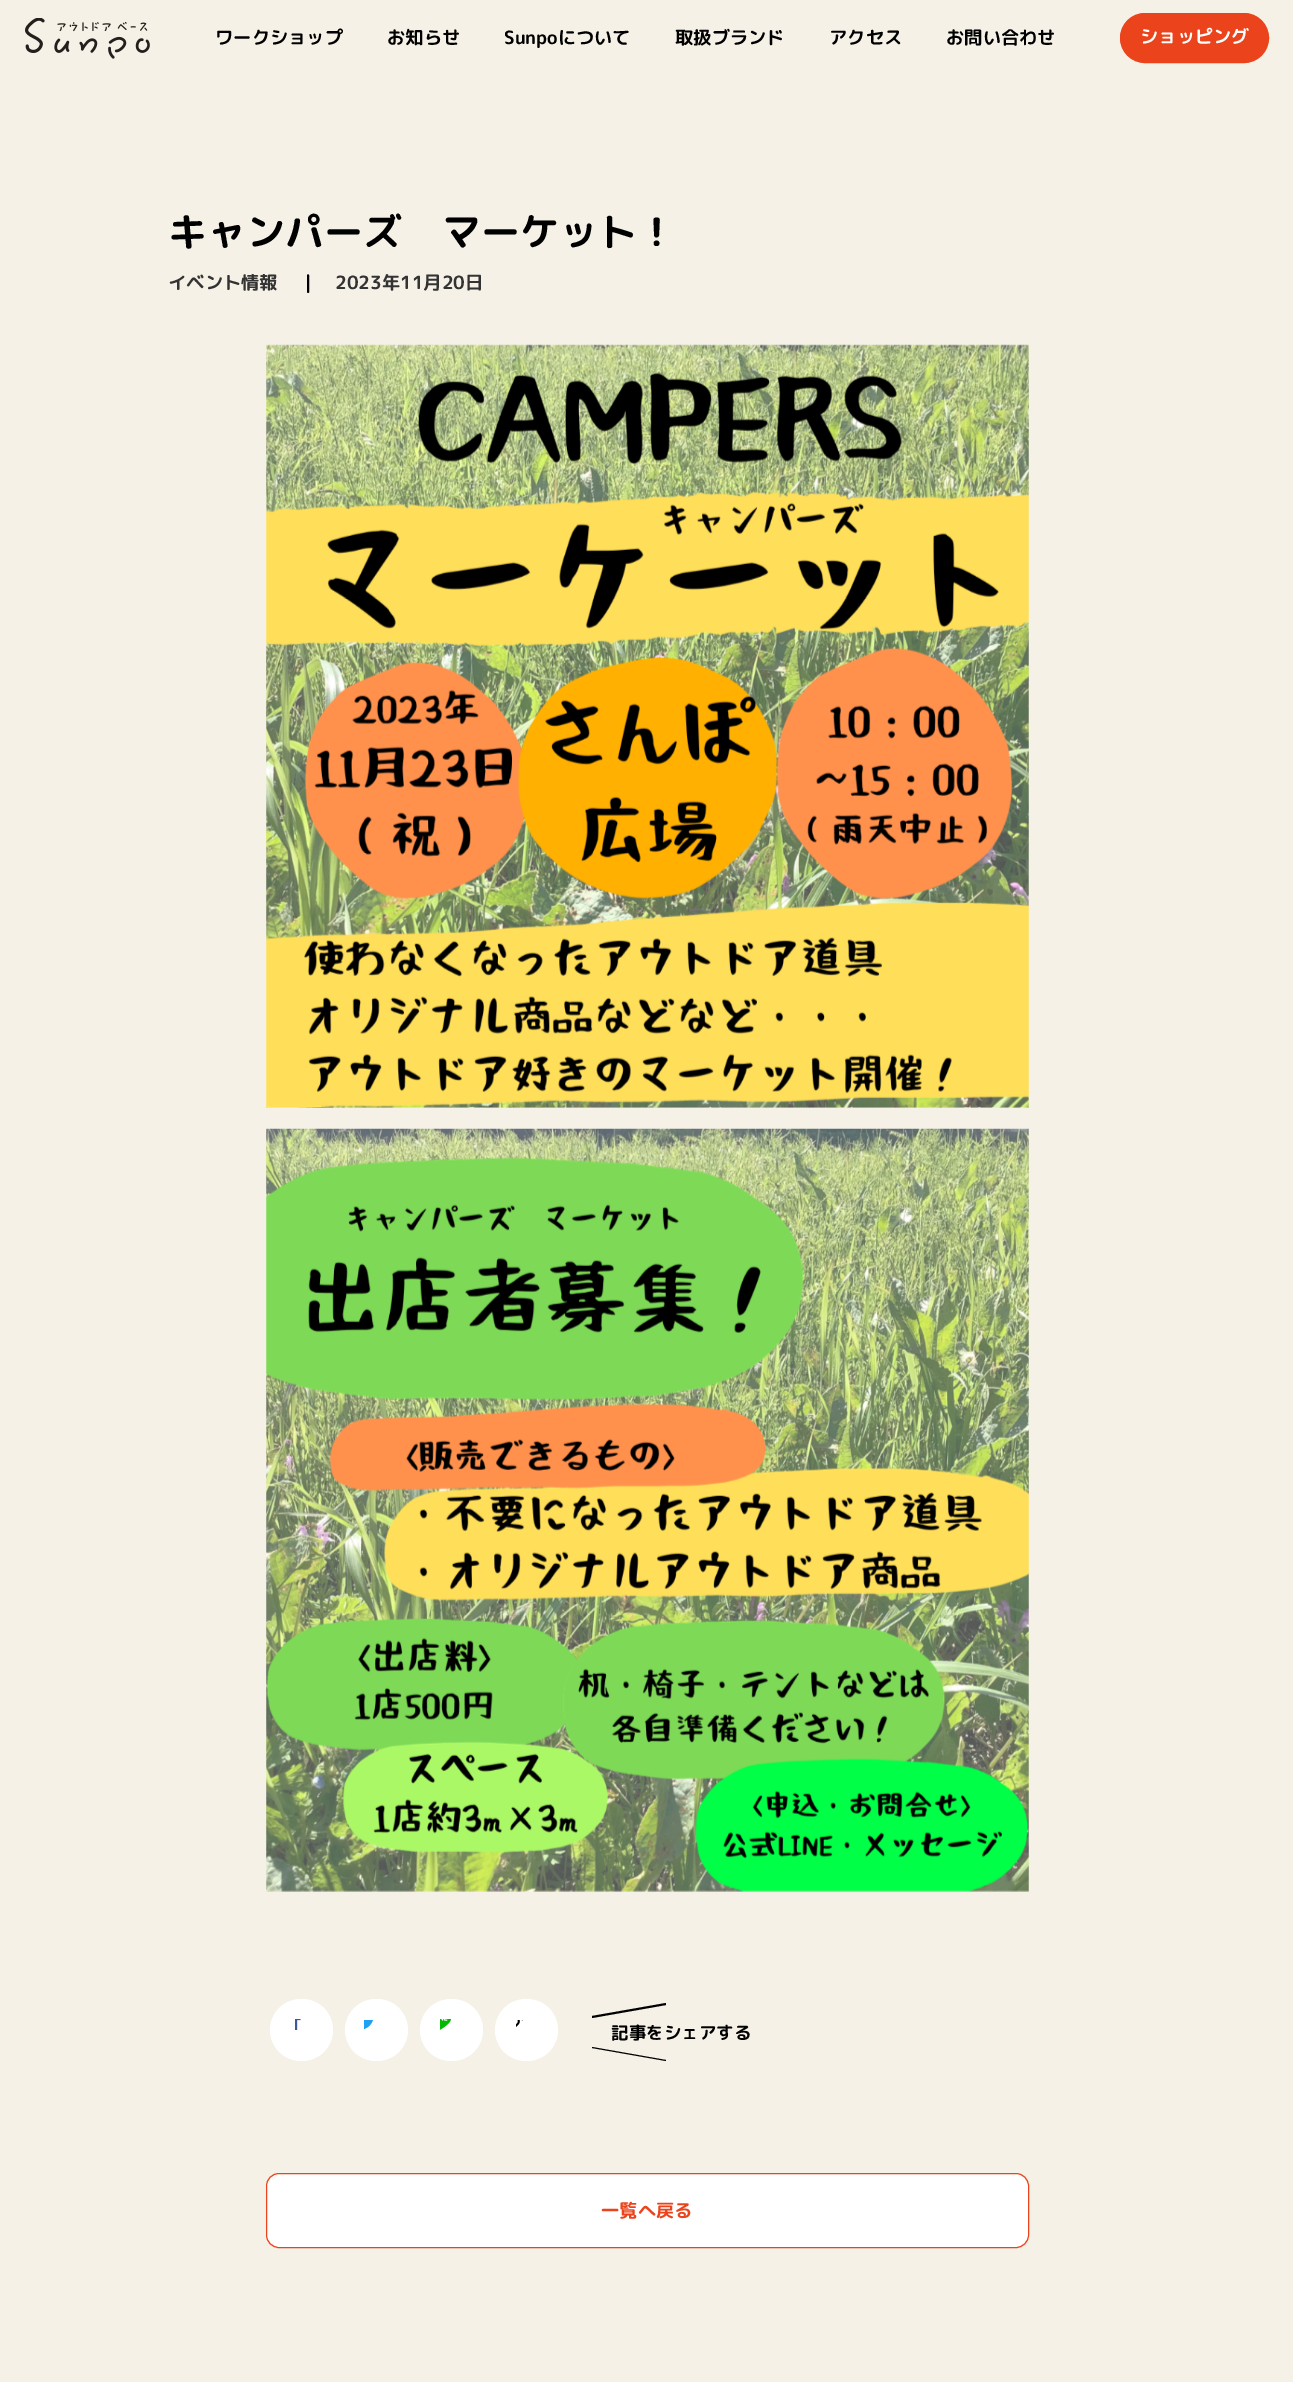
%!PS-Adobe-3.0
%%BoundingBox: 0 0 1293 2382
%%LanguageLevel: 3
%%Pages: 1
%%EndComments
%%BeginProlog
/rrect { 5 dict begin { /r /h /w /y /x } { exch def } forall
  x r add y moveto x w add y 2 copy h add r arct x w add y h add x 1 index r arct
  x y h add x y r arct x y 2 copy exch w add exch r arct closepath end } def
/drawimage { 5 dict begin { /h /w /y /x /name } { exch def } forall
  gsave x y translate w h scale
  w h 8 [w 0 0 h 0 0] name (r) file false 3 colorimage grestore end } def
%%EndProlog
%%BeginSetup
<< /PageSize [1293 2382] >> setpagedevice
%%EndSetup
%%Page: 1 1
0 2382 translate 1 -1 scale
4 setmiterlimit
0.961 0.945 0.906 setrgbcolor
0 0 1293 2382 rectfill
(images/1.raw) 25 18 125 41 drawimage
0.922 0.263 0.106 setrgbcolor
1120.5 13.5 148 49 24.5 rrect gsave fill grestore
stroke
(images/2.raw) 266 344 763 764 drawimage
(images/3.raw) 266 1128 763 764 drawimage
1 setgray
270 1999 63 62 31 rrect fill
(images/4.raw) 295 2019 6 11 drawimage
345 1999 63 62 31 rrect fill
(images/5.raw) 364 2020 9 10 drawimage
420 1999 63 62 31 rrect fill
(images/6.raw) 440 2019 12 11 drawimage
495 1999 63 62 31 rrect fill
(images/7.raw) 516 2020 7 7 drawimage
0 setgray
newpath 592 2016 moveto 666 2003 lineto 666 2005 lineto 592 2018 lineto closepath fill
newpath 592 2047 moveto 666 2060 lineto 666 2061 lineto 592 2048 lineto closepath fill
1 setgray
266.5 2173.5 762 74 12.5 rrect gsave fill grestore
0.922 0.263 0.106 setrgbcolor
stroke
/RoundedMplus1cBold-Bold [18.25 0 0 -18.25 0 0] selectfont
0 setgray
215 44 moveto (ワークショップ) show
387 44 moveto (お知らせ) show
504 44 moveto (Sunpoについて) show
675 44 moveto (取扱ブランド) show
829 44 moveto (アクセス) show
946 44 moveto (お問い合わせ) show
1 setgray
1140 43 moveto (ショッピング) show
/RoundedMplus1cBold-Bold [39.1 0 0 -39.1 0 0] selectfont
0 setgray
168 246 moveto (キャンパーズ　マーケット！) show
/RoundedMplus1cBold-Bold [18.25 0 0 -18.25 0 0] selectfont
0.2 setgray
168 289 moveto (イベント情報) show
0 setgray
299 289 moveto (｜) show
0.2 setgray
335 289 moveto (2023年11月20日) show
/RoundedMplus1cBold-Bold [17.5 0 0 -17.5 0 0] selectfont
0 setgray
611 2039 moveto (記事をシェアする) show
/RoundedMplus1cBold-Bold [18.25 0 0 -18.25 0 0] selectfont
0.922 0.263 0.106 setrgbcolor
601 2217 moveto (一覧へ戻る) show
showpage
%%EOF
